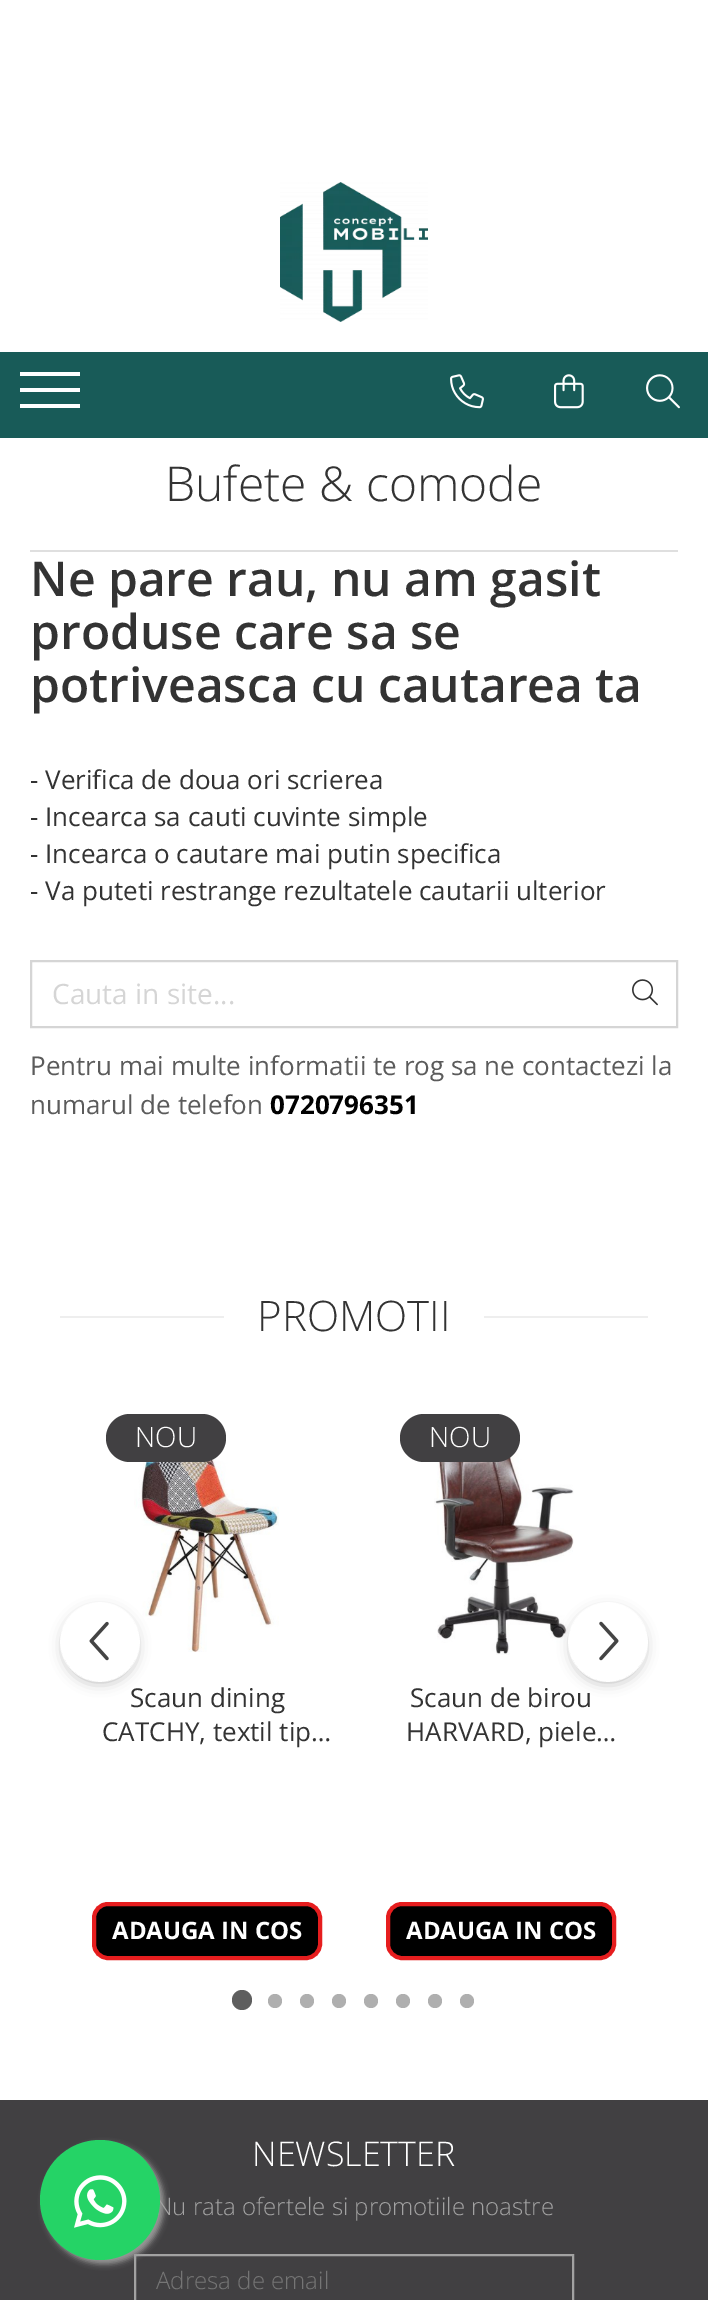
%!PS-Adobe-3.0
%%BoundingBox: 0 0 708 2300
%%LanguageLevel: 3
%%Pages: 1
%%EndComments
%%BeginProlog
/setalpha { dup .setfillconstantalpha .setstrokeconstantalpha } def
/rrect { 5 dict begin { /r /h /w /y /x } { exch def } forall
  x r add y moveto x w add y 2 copy h add r arct x w add y h add x 1 index r arct
  x y h add x y r arct x y 2 copy exch w add exch r arct closepath end } def
/softshadow { 12 dict begin { /a /b /q /h /w /y /x } { exch def } forall gsave /was 0 def
  9 -2 -9 { dup b mul 4 div /e exch def 1 sub .425 mul 2.718 exch exp 1 add a .99 .min exch div /now exch def
    1 1 now sub 1 was sub div sub setalpha /was now def
    w h .min e 2 mul add 0 gt { x e sub y e sub w e 2 mul add h e 2 mul add
      q e add b .6 mul add w h .min 2 div e add .min 0 .max rrect fill } if } for grestore end } def
/drawimage { 5 dict begin { /h /w /y /x /name } { exch def } forall
  gsave x y translate w h scale
  w h 8 [w 0 0 h 0 0] name (r) file false 3 colorimage grestore end } def
%%EndProlog
%%BeginSetup
<< /PageSize [708 2300] /PageUsesTransparency true >> setpagedevice
%%EndSetup
%%Page: 1 1
0 .pushpdf14devicefilter
0 2300 translate 1 -1 scale
4 setmiterlimit
1 setgray
0 0 708 2300 rectfill
(images/1.raw) 280 182 148 140 drawimage
0.094 0.357 0.345 setrgbcolor
0 352 708 86 rectfill
1 setgray
20 388 60 4 rectfill
20 372 60 4 rectfill
20 404 60 4 rectfill
(images/2.raw) 450 374 34 35 drawimage
(images/3.raw) 554 374 30 35 drawimage
(images/4.raw) 646 374 34 35 drawimage
0.875 setgray
30 550 648 2 rectfill
0.835 setgray
2 setlinewidth
31 961 646 66 rectstroke
(images/5.raw) 632 979 26 27 drawimage
0.933 setgray
60 1316 588 2 rectfill
1 setgray
224 1316 260 2 rectfill
(images/6.raw) 134 1426 145 226 drawimage
0.255 0.251 0.259 setrgbcolor
106 1414 120 48 24 rrect fill
0 setgray
94 1904 226 54 14 rrect gsave fill grestore
0.902 0.114 0.118 setrgbcolor
4 setlinewidth
stroke
(images/7.raw) 434 1418 140 237 drawimage
0.255 0.251 0.259 setrgbcolor
400 1414 120 48 24 rrect fill
0 setgray
388 1904 226 54 14 rrect gsave fill grestore
0.902 0.114 0.118 setrgbcolor
stroke
gsave
newpath 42 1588 moveto 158 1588 lineto 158 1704 lineto 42 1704 lineto closepath 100 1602 moveto 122 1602 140 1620 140 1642 curveto 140 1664 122 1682 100 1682 curveto 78 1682 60 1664 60 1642 curveto 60 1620 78 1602 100 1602 curveto closepath eoclip newpath
0 setgray
64 1610 72 72 36 7 0.3 softshadow
grestore
0.8 setalpha
1 setgray
newpath 100 1642 40 0 360 arc closepath fill
1 setalpha
(images/8.raw) 89 1621 20 40 drawimage
gsave
newpath 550 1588 moveto 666 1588 lineto 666 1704 lineto 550 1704 lineto closepath 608 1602 moveto 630 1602 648 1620 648 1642 curveto 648 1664 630 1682 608 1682 curveto 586 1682 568 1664 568 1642 curveto 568 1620 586 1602 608 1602 curveto closepath eoclip newpath
0 setgray
572 1610 72 72 36 7 0.3 softshadow
grestore
0.8 setalpha
newpath 608 1642 40 0 360 arc closepath fill
1 setalpha
(images/9.raw) 599 1621 20 40 drawimage
0.369 setgray
newpath 242 2000 10 0 360 arc closepath fill
0.686 setgray
newpath 275 2001 7 0 360 arc closepath fill
newpath 307 2001 7 0 360 arc closepath fill
newpath 339 2001 7 0 360 arc closepath fill
newpath 371 2001 7 0 360 arc closepath fill
newpath 403 2001 7 0 360 arc closepath fill
newpath 435 2001 7 0 360 arc closepath fill
newpath 467 2001 7 0 360 arc closepath fill
0.255 0.251 0.259 setrgbcolor
0 2100 708 200 rectfill
0.635 setgray
2 setlinewidth
135 2255 438 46 rectstroke
0.6 setgray
44 2144 120 120 60 3 1 softshadow
/OpenSans-Light [48 0 0 -48 0 0] selectfont
0.2 setgray
165 501 moveto (Bufete & comode) show
/OpenSans-SemiBold [48 0 0 -48 0 0] selectfont
30 596 moveto (Ne pare rau, nu am gasit) show
30 649 moveto (produse care sa se) show
30 702 moveto (potriveasca cu cautarea ta) show
/OpenSans-Regular [26 0 0 -26 0 0] selectfont
30 789 moveto (- Verifica de doua ori scrierea) show
30 826 moveto (- Incearca sa cauti cuvinte simple) show
30 863 moveto (- Incearca o cautare mai putin specifica) show
30 900 moveto (- Va puteti restrange rezultatele cautarii ulterior) show
/OpenSans-Regular [28 0 0 -28 0 0] selectfont
0.835 setgray
52 1004 moveto (Cauta in site...) show
/OpenSans-Regular [26 0 0 -26 0 0] selectfont
0.357 setgray
30 1075 moveto (Pentru mai multe informatii te rog sa ne contactezi la) show
30 1114 moveto (numarul de telefon) show
/OpenSans-Bold [26 0 0 -26 0 0] selectfont
0 setgray
270 1114 moveto (0720796351) show
/OpenSans-Light [42 0 0 -42 0 0] selectfont
0.2 setgray
257 1331 moveto (PROMOTII) show
/OpenSans-Light [28 0 0 -28 0 0] selectfont
1 setgray
135 1447 moveto (NOU) show
/OpenSans-Regular [26 0 0 -26 0 0] selectfont
0.2 setgray
130 1707 moveto (Scaun dining) show
102 1741 moveto (CATCHY, textil tip…) show
/OpenSans-Bold [24 0 0 -24 0 0] selectfont
1 setgray
112 1939 moveto (ADAUGA IN COS) show
/OpenSans-Light [28 0 0 -28 0 0] selectfont
429 1447 moveto (NOU) show
/OpenSans-Regular [26 0 0 -26 0 0] selectfont
0.2 setgray
410 1707 moveto (Scaun de birou) show
406 1741 moveto (HARVARD, piele…) show
/OpenSans-Bold [24 0 0 -24 0 0] selectfont
1 setgray
406 1939 moveto (ADAUGA IN COS) show
/OpenSans-Light [34 0 0 -34 0 0] selectfont
252 2166 moveto (NEWSLETTER) show
/OpenSans-Light [24 0 0 -24 0 0] selectfont
0.635 setgray
155 2215 moveto (Nu rata ofertele si promotiile noastre) show
0.459 setgray
156 2289 moveto (Adresa de email) show
0.145 0.827 0.4 setrgbcolor
newpath 100 2200 60 0 360 arc closepath fill
(images/10.raw) 74 2175 53 53 drawimage
.poppdf14devicefilter showpage
%%EOF
